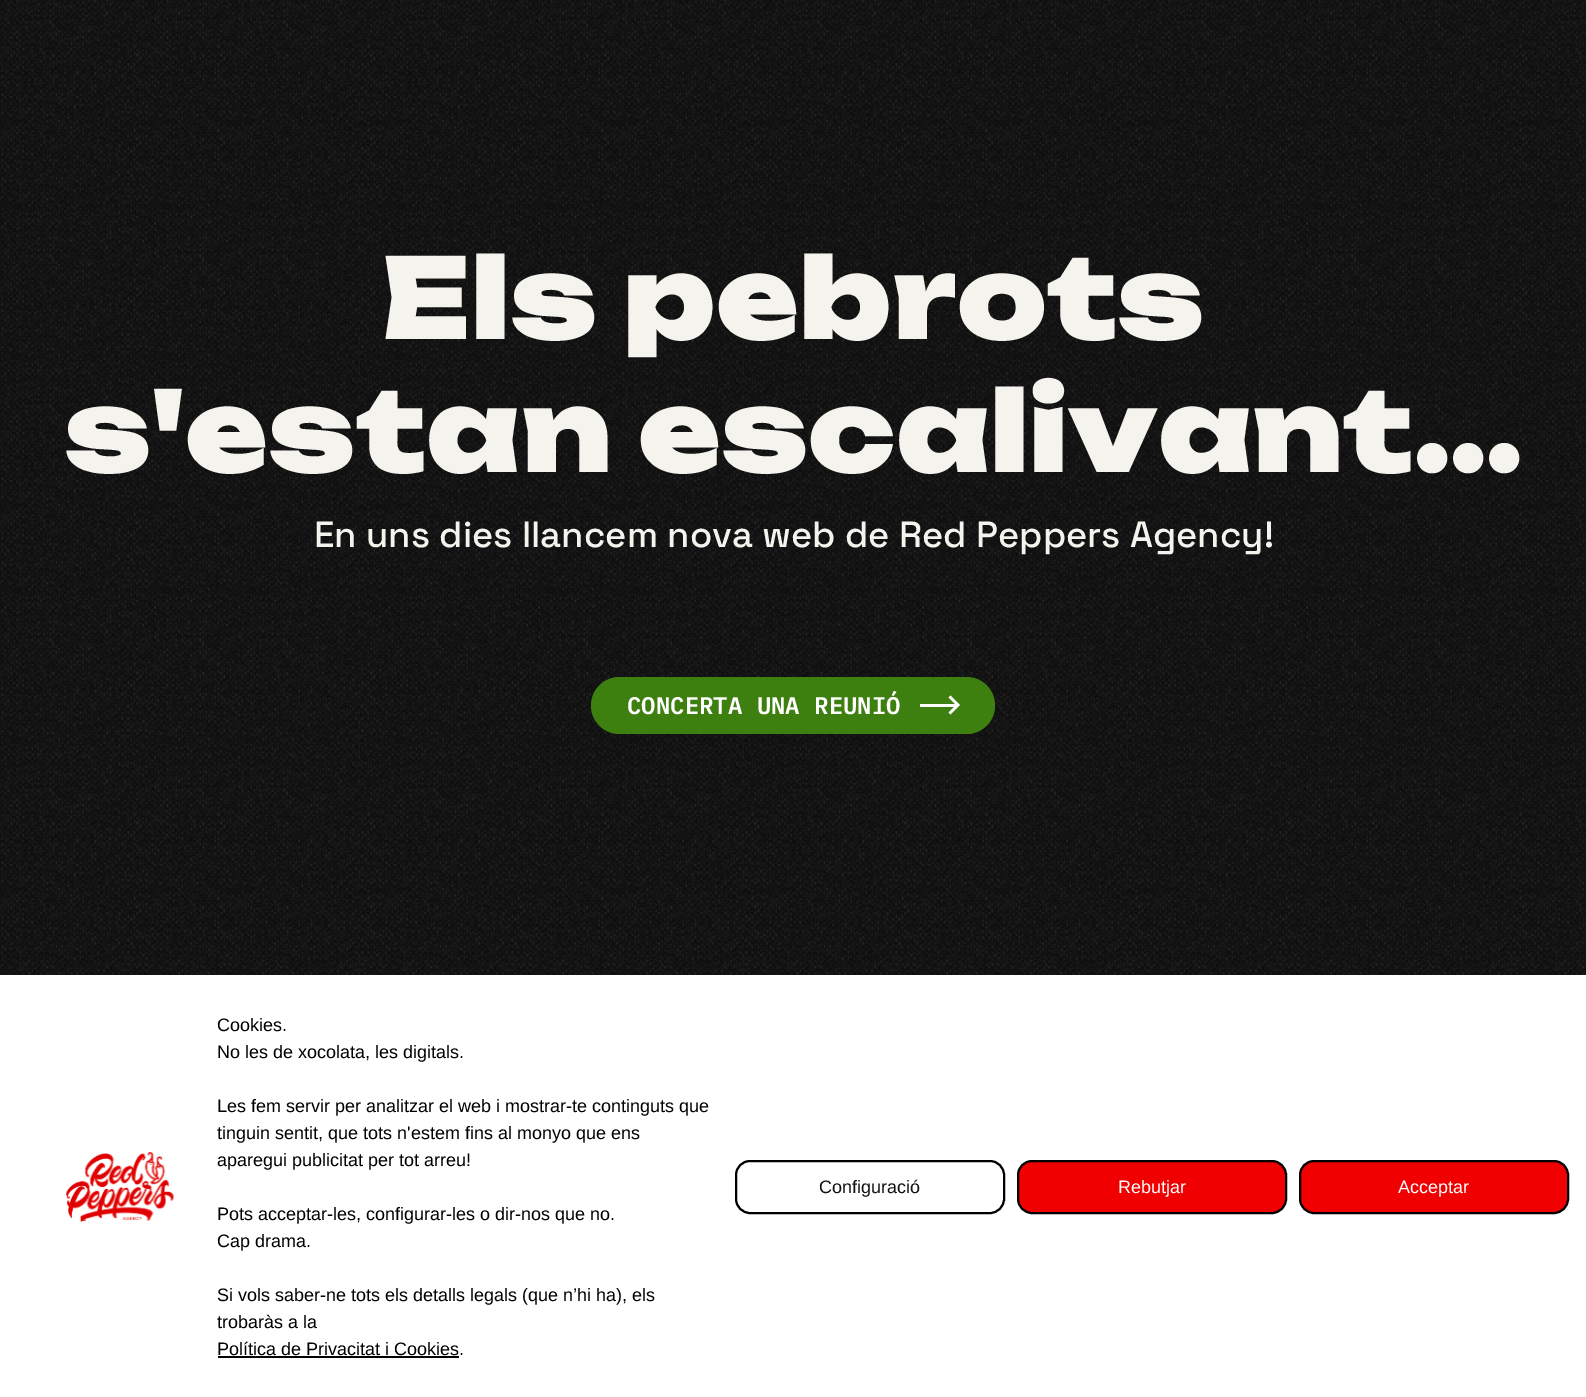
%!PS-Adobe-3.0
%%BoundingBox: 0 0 1586 1397
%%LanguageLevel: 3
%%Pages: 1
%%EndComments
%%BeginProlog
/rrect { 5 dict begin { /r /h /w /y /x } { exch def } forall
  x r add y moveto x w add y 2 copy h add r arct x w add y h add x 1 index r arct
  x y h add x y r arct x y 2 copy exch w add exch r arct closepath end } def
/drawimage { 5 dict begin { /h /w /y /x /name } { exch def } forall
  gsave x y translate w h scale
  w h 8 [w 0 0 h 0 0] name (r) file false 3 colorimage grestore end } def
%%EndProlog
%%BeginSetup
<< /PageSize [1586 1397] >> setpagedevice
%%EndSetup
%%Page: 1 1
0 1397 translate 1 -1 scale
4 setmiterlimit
0.059 setgray
0 0 1586 1397 rectfill
(images/1.raw) 0 0 1586 975 drawimage
0.239 0.502 0.063 setrgbcolor
591 677 404 57 28.5 rrect fill
1 setgray
920 704 37 3 rectfill
newpath 950.5 714.5 moveto 948.5 712.5 lineto 956 705 lineto 948.5 697.5 lineto 950.5 695.5 lineto 960 705 lineto closepath fill
0 975 1586 422 rectfill
(images/2.raw) 66 1151 109 71 drawimage
0 setgray
218 1356 241 2 rectfill
2 setlinewidth
736 1161 268 52 14 rrect stroke
0.941 0 0 setrgbcolor
1018 1161 268 52 14 rrect gsave fill grestore
0 setgray
stroke
0.941 0 0 setrgbcolor
1300 1161 268 52 14 rrect gsave fill grestore
0 setgray
stroke
/Unbounded-Black [111 0 0 -111 0 0] selectfont
0.961 0.953 0.929 setrgbcolor
381 339 moveto (Els pebrots) show
64 472 moveto (s'estan escalivant...) show
/SpaceGrotesk-Medium [36.45 0 0 -36.45 0 0] selectfont
314 547 moveto (En uns dies llancem nova web de Red Peppers Agency!) show
/IBMPlexMono-SemiBold [24 0 0 -24 0 0] selectfont
1 setgray
627 714 moveto (CONCERTA UNA REUNIÓ) show
/LiberationSans-Regular [18 0 0 -18 0 0] selectfont
0 setgray
217 1031 moveto (Cookies.) show
217 1058 moveto (No les de xocolata, les digitals.) show
217 1112 moveto (Les fem servir per analitzar el web i mostrar-te continguts que) show
217 1139 moveto (tinguin sentit, que tots n'estem fins al monyo que ens) show
217 1166 moveto (aparegui publicitat per tot arreu!) show
217 1220 moveto (Pots acceptar-les, configurar-les o dir-nos que no.) show
217 1247 moveto (Cap drama.) show
217 1301 moveto (Si vols saber-ne tots els detalls legals \(que n’hi ha\), els) show
217 1328 moveto (trobaràs a la) show
217 1355 moveto (Política de Privacitat i Cookies.) show
0.067 setgray
819 1193 moveto (Configuració) show
1 setgray
1118 1193 moveto (Rebutjar) show
1398 1193 moveto (Acceptar) show
showpage
%%EOF
